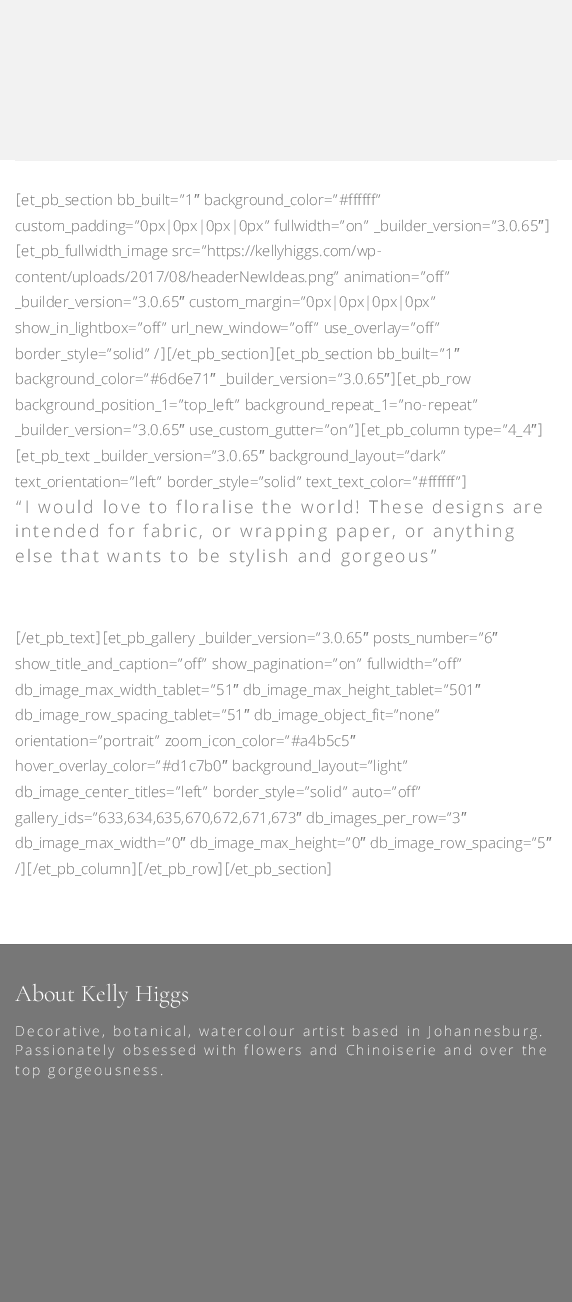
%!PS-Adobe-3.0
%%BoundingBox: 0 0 572 1302
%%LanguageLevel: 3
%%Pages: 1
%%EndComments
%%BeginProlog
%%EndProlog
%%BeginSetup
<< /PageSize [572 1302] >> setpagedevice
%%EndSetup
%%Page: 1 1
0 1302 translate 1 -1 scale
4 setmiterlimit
1 setgray
0 0 572 1302 rectfill
0.949 setgray
0 0 572 160 rectfill
0.945 setgray
15 160 542 1 rectfill
0.467 setgray
0 945 572 357 rectfill
0.443 setgray
0 944 572 1 rectfill
/Khula-Light [16 0 0 -16 0 0] selectfont
0.467 setgray
15 205 moveto ([et_pb_section bb_built=”1) show
/LiberationSans-Regular [16 0 0 -16 0 0] selectfont
194 205 moveto (″) show
/Khula-Light [16 0 0 -16 0 0] selectfont
204 205 moveto (background_color=”#ffffff”) show
15 231 moveto (custom_padding=”0px|0px|0px|0px” fullwidth=”on” _builder_version=”3.0.65) show
/LiberationSans-Regular [16 0 0 -16 0 0] selectfont
538 231 moveto (″) show
/Khula-Light [16 0 0 -16 0 0] selectfont
544 231 moveto (]) show
15 256 moveto ([et_pb_fullwidth_image src=”https://kellyhiggs.com/wp-) show
15 282 moveto (content/uploads/2017/08/headerNewIdeas.png” animation=”off”) show
15 307 moveto (_builder_version=”3.0.65) show
/LiberationSans-Regular [16 0 0 -16 0 0] selectfont
179 307 moveto (″) show
/Khula-Light [16 0 0 -16 0 0] selectfont
189 307 moveto (custom_margin=”0px|0px|0px|0px”) show
15 333 moveto (show_in_lightbox=”off” url_new_window=”off” use_overlay=”off”) show
15 359 moveto (border_style=”solid” /][/et_pb_section][et_pb_section bb_built=”1) show
/LiberationSans-Regular [16 0 0 -16 0 0] selectfont
454 359 moveto (″) show
/Khula-Light [16 0 0 -16 0 0] selectfont
15 384 moveto (background_color=”#6d6e71) show
/LiberationSans-Regular [16 0 0 -16 0 0] selectfont
210 384 moveto (″) show
/Khula-Light [16 0 0 -16 0 0] selectfont
220 384 moveto (_builder_version=”3.0.65) show
/LiberationSans-Regular [16 0 0 -16 0 0] selectfont
384 384 moveto (″) show
/Khula-Light [16 0 0 -16 0 0] selectfont
390 384 moveto (][et_pb_row) show
15 410 moveto (background_position_1=”top_left” background_repeat_1=”no-repeat”) show
15 435 moveto (_builder_version=”3.0.65) show
/LiberationSans-Regular [16 0 0 -16 0 0] selectfont
179 435 moveto (″) show
/Khula-Light [16 0 0 -16 0 0] selectfont
189 435 moveto (use_custom_gutter=”on”][et_pb_column type=”4_4) show
/LiberationSans-Regular [16 0 0 -16 0 0] selectfont
531 435 moveto (″) show
/Khula-Light [16 0 0 -16 0 0] selectfont
537 435 moveto (]) show
15 461 moveto ([et_pb_text _builder_version=”3.0.65) show
/LiberationSans-Regular [16 0 0 -16 0 0] selectfont
259 461 moveto (″) show
/Khula-Light [16 0 0 -16 0 0] selectfont
269 461 moveto (background_layout=”dark”) show
15 487 moveto (text_orientation=”left” border_style=”solid” text_text_color=”#ffffff”]) show
/Khula-Light [18.7 0 0 -18.7 0 0] selectfont
15 513 moveto 2 0 (“I would love to floralise the world! These designs are) ashow
15 537 moveto 2 0 (intended for fabric, or wrapping paper, or anything) ashow
15 562 moveto 2 0 (else that wants to be stylish and gorgeous”) ashow
/Khula-Light [16 0 0 -16 0 0] selectfont
15 643 moveto ([/et_pb_text][et_pb_gallery _builder_version=”3.0.65) show
/LiberationSans-Regular [16 0 0 -16 0 0] selectfont
363 643 moveto (″) show
/Khula-Light [16 0 0 -16 0 0] selectfont
373 643 moveto (posts_number=”6) show
/LiberationSans-Regular [16 0 0 -16 0 0] selectfont
492 643 moveto (″) show
/Khula-Light [16 0 0 -16 0 0] selectfont
15 669 moveto (show_title_and_caption=”off” show_pagination=”on” fullwidth=”off”) show
15 695 moveto (db_image_max_width_tablet=”51) show
/LiberationSans-Regular [16 0 0 -16 0 0] selectfont
233 695 moveto (″) show
/Khula-Light [16 0 0 -16 0 0] selectfont
243 695 moveto (db_image_max_height_tablet=”501) show
/LiberationSans-Regular [16 0 0 -16 0 0] selectfont
475 695 moveto (″) show
/Khula-Light [16 0 0 -16 0 0] selectfont
15 720 moveto (db_image_row_spacing_tablet=”51) show
/LiberationSans-Regular [16 0 0 -16 0 0] selectfont
244 720 moveto (″) show
/Khula-Light [16 0 0 -16 0 0] selectfont
254 720 moveto (db_image_object_fit=”none”) show
15 746 moveto (orientation=”portrait” zoom_icon_color=”#a4b5c5) show
/LiberationSans-Regular [16 0 0 -16 0 0] selectfont
350 746 moveto (″) show
/Khula-Light [16 0 0 -16 0 0] selectfont
15 771 moveto (hover_overlay_color=”#d1c7b0) show
/LiberationSans-Regular [16 0 0 -16 0 0] selectfont
222 771 moveto (″) show
/Khula-Light [16 0 0 -16 0 0] selectfont
232 771 moveto (background_layout=”light”) show
15 797 moveto (db_image_center_titles=”left” border_style=”solid” auto=”off”) show
15 823 moveto (gallery_ids=”633,634,635,670,672,671,673) show
/LiberationSans-Regular [16 0 0 -16 0 0] selectfont
296 823 moveto (″) show
/Khula-Light [16 0 0 -16 0 0] selectfont
306 823 moveto (db_images_per_row=”3) show
/LiberationSans-Regular [16 0 0 -16 0 0] selectfont
461 823 moveto (″) show
/Khula-Light [16 0 0 -16 0 0] selectfont
15 848 moveto (db_image_max_width=”0) show
/LiberationSans-Regular [16 0 0 -16 0 0] selectfont
180 848 moveto (″) show
/Khula-Light [16 0 0 -16 0 0] selectfont
190 848 moveto (db_image_max_height=”0) show
/LiberationSans-Regular [16 0 0 -16 0 0] selectfont
360 848 moveto (″) show
/Khula-Light [16 0 0 -16 0 0] selectfont
370 848 moveto (db_image_row_spacing=”5) show
/LiberationSans-Regular [16 0 0 -16 0 0] selectfont
546 848 moveto (″) show
/Khula-Light [16 0 0 -16 0 0] selectfont
15 874 moveto (/][/et_pb_column][/et_pb_row][/et_pb_section]) show
/CormorantGaramond-Light [24 0 0 -24 0 0] selectfont
1 setgray
15 1001 moveto (About Kelly Higgs) show
/Khula-Light [15 0 0 -15 0 0] selectfont
0.945 setgray
15 1036 moveto 2 0 (Decorative, botanical, watercolour artist based in Johannesburg.) ashow
15 1055 moveto 2 0 (Passionately obsessed with flowers and Chinoiserie and over the) ashow
15 1075 moveto 2 0 (top gorgeousness.) ashow
showpage
%%EOF
